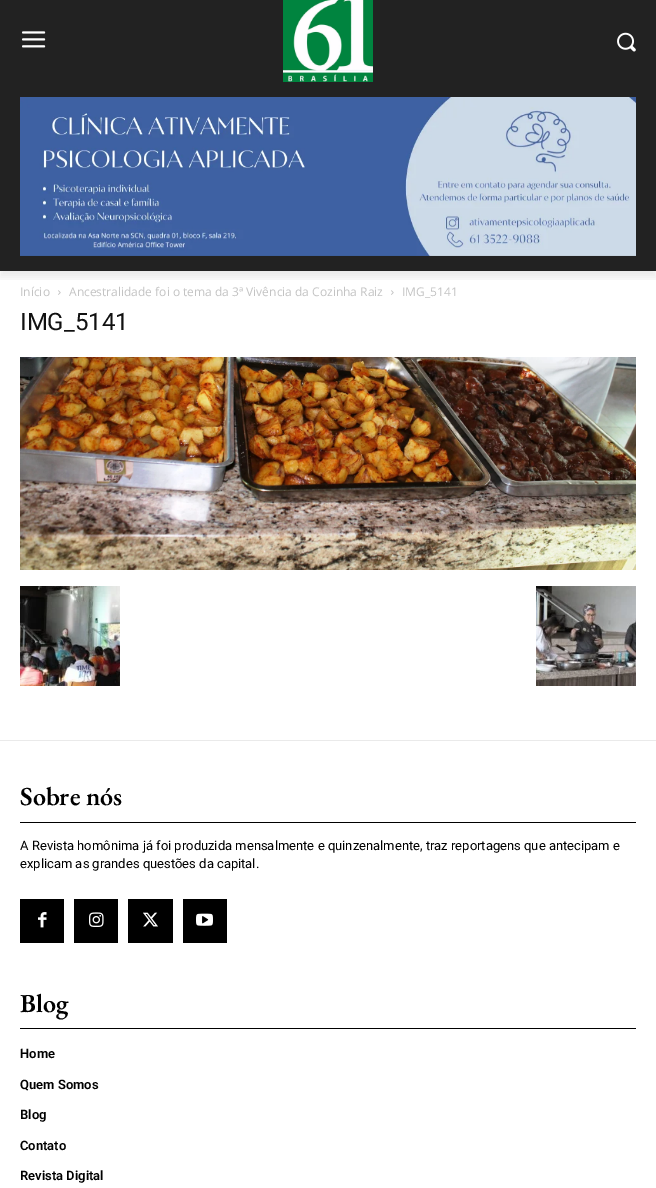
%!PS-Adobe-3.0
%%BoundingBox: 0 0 656 1188
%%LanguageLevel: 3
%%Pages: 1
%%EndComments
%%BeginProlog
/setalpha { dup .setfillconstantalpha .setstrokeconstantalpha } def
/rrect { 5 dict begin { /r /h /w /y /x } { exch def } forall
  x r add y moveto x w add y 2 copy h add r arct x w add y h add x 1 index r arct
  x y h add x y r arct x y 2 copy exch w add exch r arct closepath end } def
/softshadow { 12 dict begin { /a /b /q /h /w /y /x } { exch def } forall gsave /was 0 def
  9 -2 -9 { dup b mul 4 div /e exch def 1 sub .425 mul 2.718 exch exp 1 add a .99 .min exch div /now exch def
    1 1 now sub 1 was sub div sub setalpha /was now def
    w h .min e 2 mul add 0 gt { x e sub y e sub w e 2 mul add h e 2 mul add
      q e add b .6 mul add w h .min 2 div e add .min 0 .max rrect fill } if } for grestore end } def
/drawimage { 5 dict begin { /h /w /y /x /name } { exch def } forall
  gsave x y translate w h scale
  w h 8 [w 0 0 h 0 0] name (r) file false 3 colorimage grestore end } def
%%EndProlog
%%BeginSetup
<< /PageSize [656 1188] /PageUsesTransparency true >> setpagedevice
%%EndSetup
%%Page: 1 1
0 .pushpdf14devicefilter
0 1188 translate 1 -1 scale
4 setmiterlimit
1 setgray
0 0 656 1188 rectfill
0.133 setgray
0 0 656 271 rectfill
(images/1.raw) 22 31 24 17 drawimage
(images/2.raw) 283 0 90 82 drawimage
(images/3.raw) 617 32 19 20 drawimage
(images/4.raw) 20 97 616 159 drawimage
gsave
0 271 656 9 rectclip
0 setgray
0 6 656 271 0 4 0.08 softshadow
grestore
(images/5.raw) 58 290 3 5 drawimage
(images/5.raw) 391 290 3 5 drawimage
(images/6.raw) 20 357 616 213 drawimage
(images/7.raw) 20 586 100 100 drawimage
(images/8.raw) 536 586 100 100 drawimage
0.918 setgray
0 740 656 1 rectfill
0 setgray
20 822 616 1 rectfill
20 899 44 44 rectfill
(images/9.raw) 38 912 9 16 drawimage
74 899 44 44 rectfill
(images/10.raw) 89 912 15 15 drawimage
128 899 45 44 rectfill
(images/11.raw) 143 912 15 15 drawimage
183 899 44 44 rectfill
(images/12.raw) 196 913 17 13 drawimage
20 1028 616 1 rectfill
/OpenSans-Regular [12 0 0 -12 0 0] selectfont
0.765 setgray
20 296 moveto (Início) show
69 296 moveto (Ancestralidade foi o tema da 3ª Vivência da Cozinha Raiz) show
402 296 moveto (IMG_5141) show
/Roboto-Regular [24 0 0 -24 0 0] selectfont
0.067 setgray
20 330 moveto (IMG_5141) show
/EBGaramond-SemiBold [26 0 0 -26 0 0] selectfont
0 setgray
20 805 moveto (Sobre nós) show
/Roboto-Regular [13 0 0 -13 0 0] selectfont
20 850 moveto (A Revista homônima já foi produzida mensalmente e quinzenalmente, traz reportagens que antecipam e) show
20 868 moveto (explicam as grandes questões da capital.) show
/EBGaramond-SemiBold [26 0 0 -26 0 0] selectfont
20 1012 moveto (Blog) show
/Roboto-SemiBold [13 0 0 -13 0 0] selectfont
20 1058 moveto (Home) show
20 1089 moveto (Quem Somos) show
20 1119 moveto (Blog) show
20 1150 moveto (Contato) show
20 1180 moveto (Revista Digital) show
.poppdf14devicefilter showpage
%%EOF
